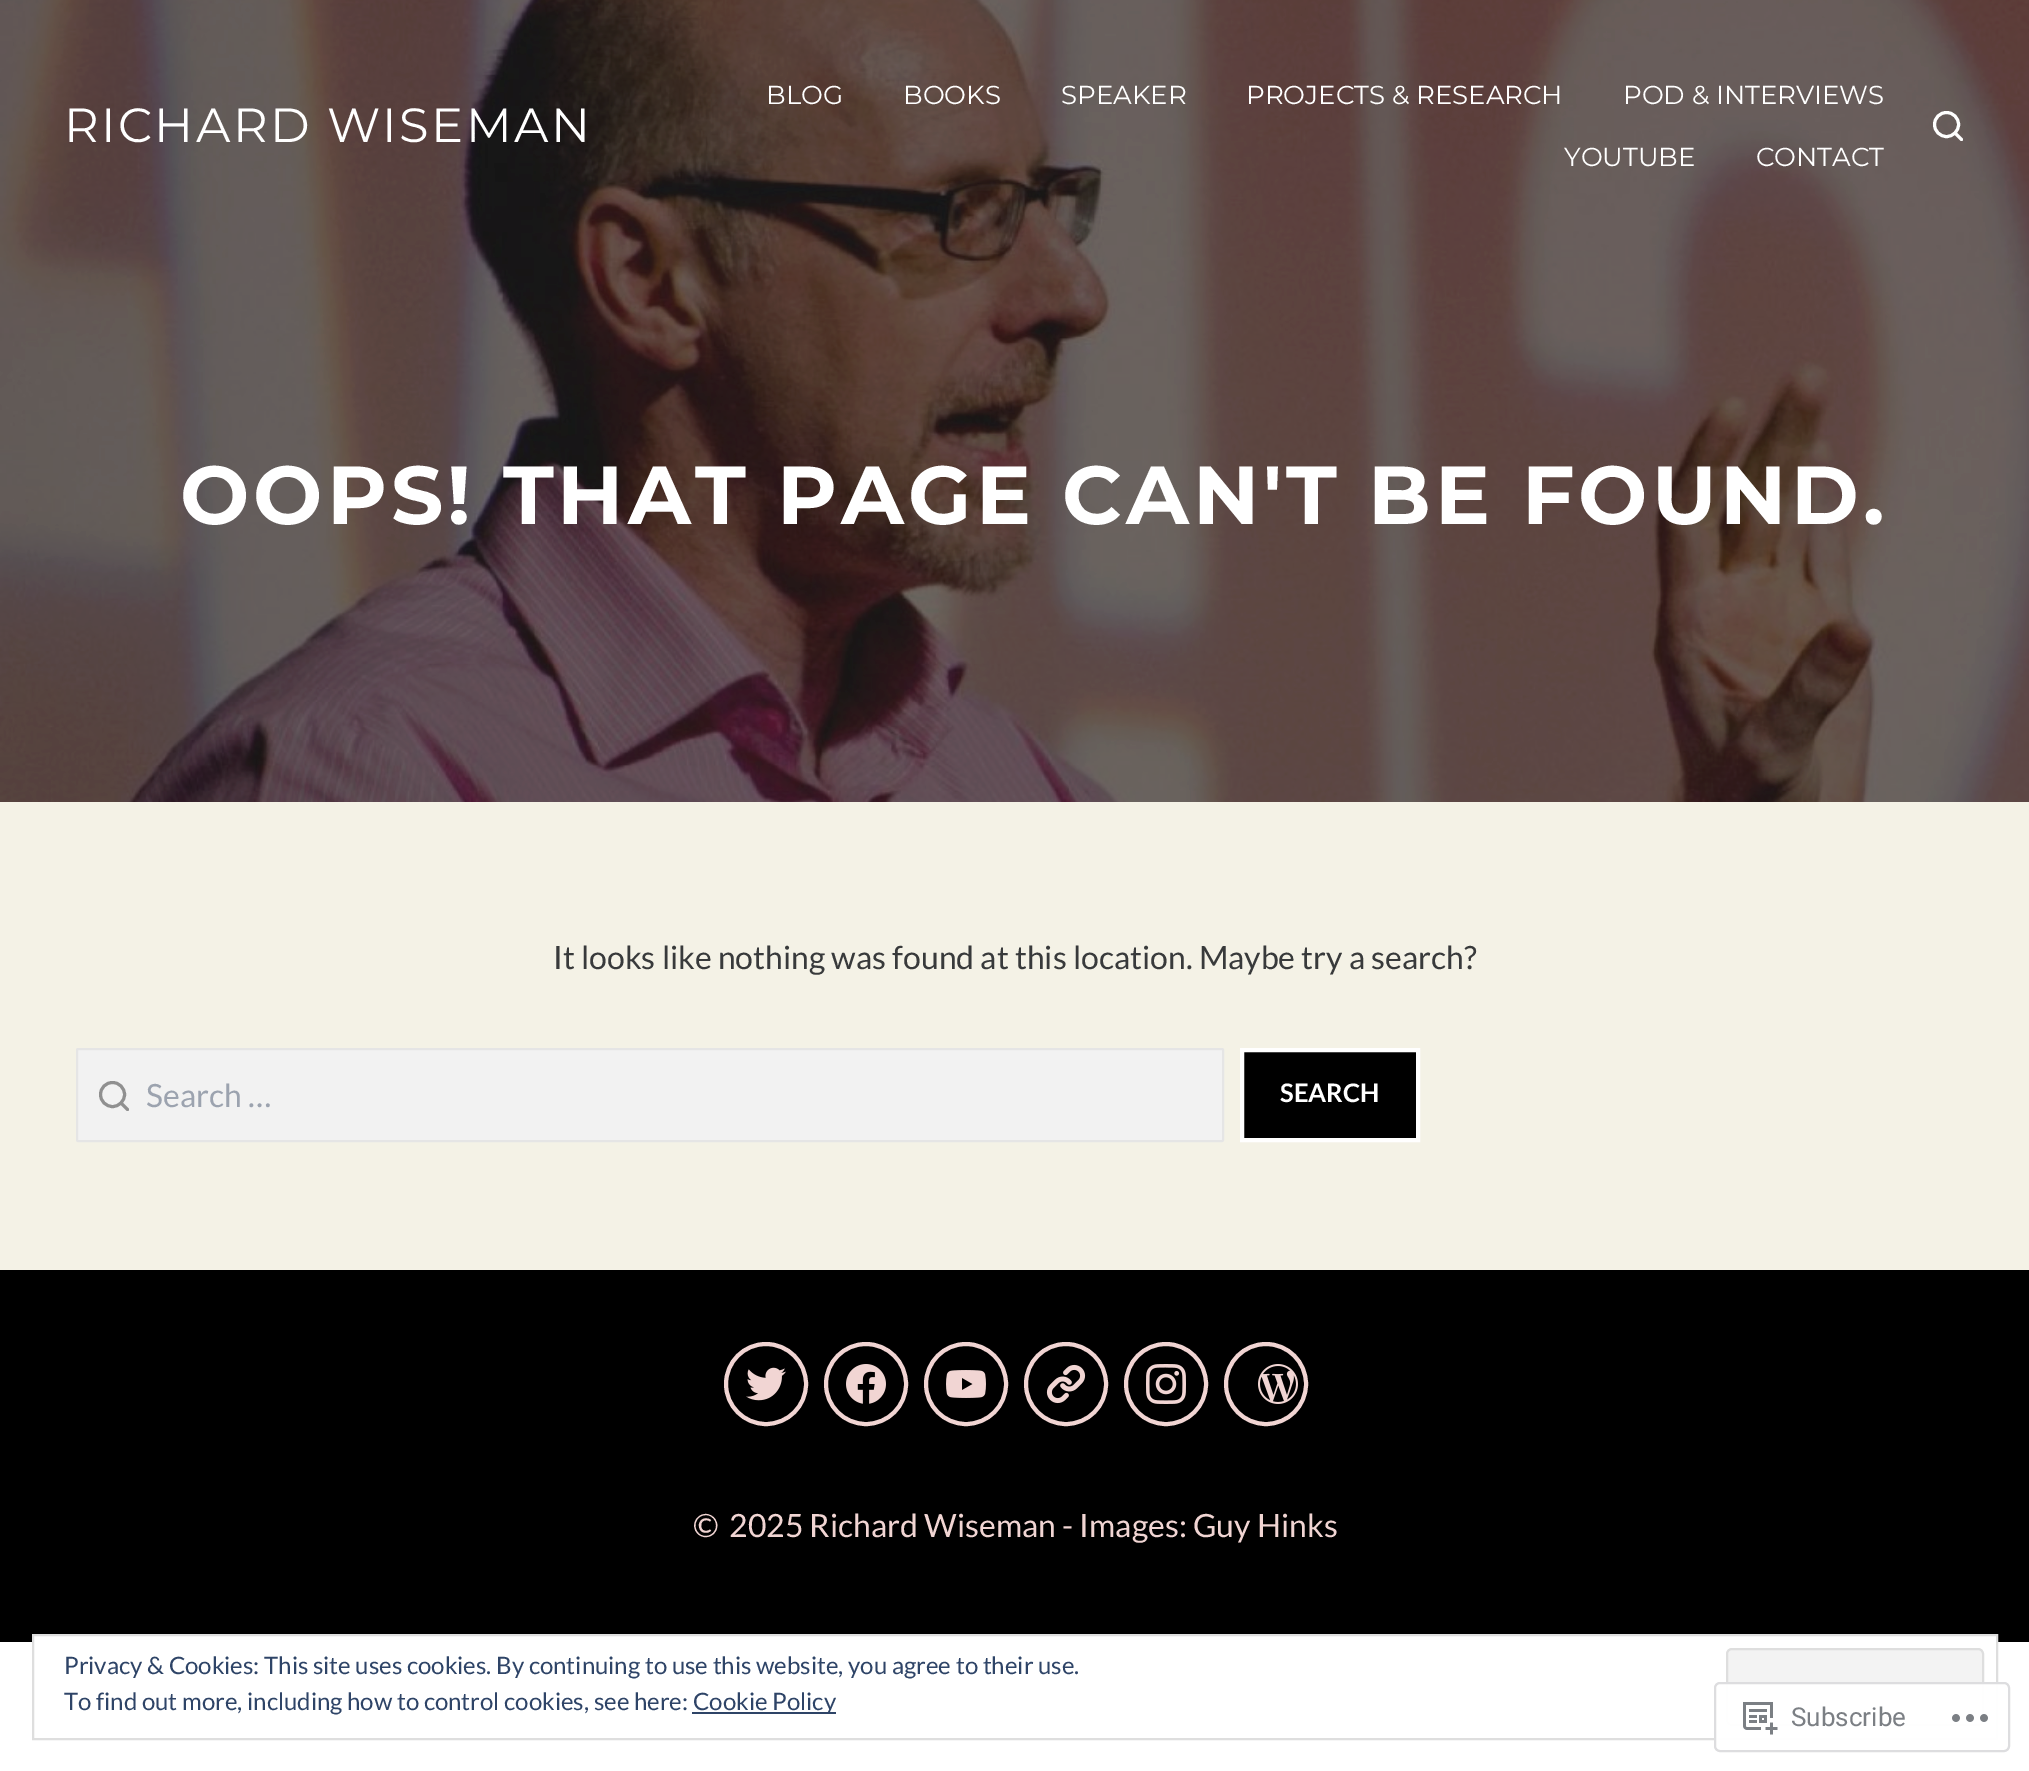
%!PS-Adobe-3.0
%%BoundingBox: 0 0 2029 1771
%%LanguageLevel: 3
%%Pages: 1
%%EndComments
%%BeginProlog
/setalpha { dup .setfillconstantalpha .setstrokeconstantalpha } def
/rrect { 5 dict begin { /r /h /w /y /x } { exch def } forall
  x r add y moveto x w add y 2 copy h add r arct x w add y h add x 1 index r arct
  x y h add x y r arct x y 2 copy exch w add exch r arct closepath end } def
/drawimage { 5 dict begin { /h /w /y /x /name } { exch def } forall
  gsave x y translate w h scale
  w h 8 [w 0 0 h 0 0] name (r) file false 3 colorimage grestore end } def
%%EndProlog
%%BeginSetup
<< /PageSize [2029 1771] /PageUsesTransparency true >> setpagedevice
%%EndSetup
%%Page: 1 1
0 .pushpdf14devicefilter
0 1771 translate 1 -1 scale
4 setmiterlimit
1 setgray
0 0 2029 1771 rectfill
0.957 0.949 0.902 setrgbcolor
0 802 2029 468 rectfill
0.129 setgray
0 0 2029 802 rectfill
(images/1.raw) 0 0 2029 802 drawimage
1 setgray
3 setlinewidth
newpath 1946.5 124.5 12 0 360 arc closepath stroke
1 setlinecap
1 setlinejoin
newpath 1961.5 139.5 moveto 1955 133 lineto stroke
0.949 setgray
77 1049 1146 92 1 rrect gsave fill grestore
0.898 setgray
2 setlinewidth
0 setlinecap
0 setlinejoin
stroke
0.565 setgray
3 setlinewidth
newpath 112.5 1094.5 12 0 360 arc closepath stroke
1 setlinecap
1 setlinejoin
newpath 127.5 1109.5 moveto 121 1103 lineto stroke
0 setgray
newpath 1242 1050 moveto 1418 1050 lineto 1418 1140 lineto 1242 1140 lineto closepath gsave fill grestore
1 setgray
4 setlinewidth
0 setlinecap
0 setlinejoin
stroke
0 setgray
0 1270 2029 372 rectfill
0.945 0.835 0.827 setrgbcolor
newpath 766 1384 40 0 360 arc closepath stroke
(images/2.raw) 746 1367 40 34 drawimage
newpath 866 1384 40 0 360 arc closepath stroke
(images/3.raw) 846 1364 40 40 drawimage
newpath 966 1384 40 0 360 arc closepath stroke
(images/4.raw) 946 1370 40 28 drawimage
newpath 1066 1384 40 0 360 arc closepath stroke
(images/5.raw) 1046 1364 40 40 drawimage
newpath 1166 1384 40 0 360 arc closepath stroke
(images/6.raw) 1146 1364 40 40 drawimage
newpath 1266 1384 40 0 360 arc closepath stroke
(images/7.raw) 1258 1364 40 40 drawimage
1 setgray
34 1636 1962 6 rectfill
0.871 setgray
2 setlinewidth
33 1635 1964 104 rectstroke
0.953 setgray
1727 1649 256 76 5 rrect gsave fill grestore
0.871 setgray
stroke
0.18 0.267 0.404 setrgbcolor
692 1712 144 2 rectfill
0.98 setalpha
1 setgray
1714 1682 296 70 6 rrect fill
0.863 0.863 0.871 setrgbcolor
1715 1683 294 68 5 rrect stroke
1 setalpha
(images/8.raw) 1743 1702 35 33 drawimage
(images/9.raw) 1952 1714 36 8 drawimage
/Montserrat-Regular [48 0 0 -48 0 0] selectfont
1 setgray
64 142 moveto 2.4 0 (RICHARD WISEMAN) ashow
/Montserrat-Regular [26 0 0 -26 0 0] selectfont
766 104 moveto (BLOG) show
903 104 moveto (BOOKS) show
1061 104 moveto (SPEAKER) show
1246 104 moveto (PROJECTS & RESEARCH) show
1623 104 moveto (POD & INTERVIEWS) show
1564 166 moveto (YOUTUBE) show
1756 166 moveto (CONTACT) show
/Montserrat-Bold [82.1 0 0 -82.1 0 0] selectfont
180 524 moveto 4.1 0 (OOPS! THAT PAGE CAN'T BE FOUND.) ashow
/Lato-Regular [32 0 0 -32 0 0] selectfont
0.22 0.227 0.231 setrgbcolor
553 969 moveto (It looks like nothing was found at this location. Maybe try a search?) show
0.612 0.639 0.686 setrgbcolor
146 1107 moveto (Search …) show
/Lato-Bold [25.5 0 0 -25.5 0 0] selectfont
1 setgray
1280 1102 moveto (SEARCH) show
/Lato-Regular [32 0 0 -32 0 0] selectfont
0.945 0.835 0.827 setrgbcolor
693 1537 moveto (©) show
729 1537 moveto (2025 Richard Wiseman - Images: Guy Hinks) show
/Lato-Regular [24 0 0 -24 0 0] selectfont
0.18 0.267 0.404 setrgbcolor
64 1674 moveto (Privacy & Cookies: This site uses cookies. By continuing to use this website, you agree to their use.) show
64 1710 moveto (To find out more, including how to control cookies, see here:) show
693 1710 moveto (Cookie Policy) show
/Roboto-Regular [26 0 0 -26 0 0] selectfont
0.482 0.498 0.518 setrgbcolor
1791 1726 moveto (Subscribe) show
.poppdf14devicefilter showpage
%%EOF
